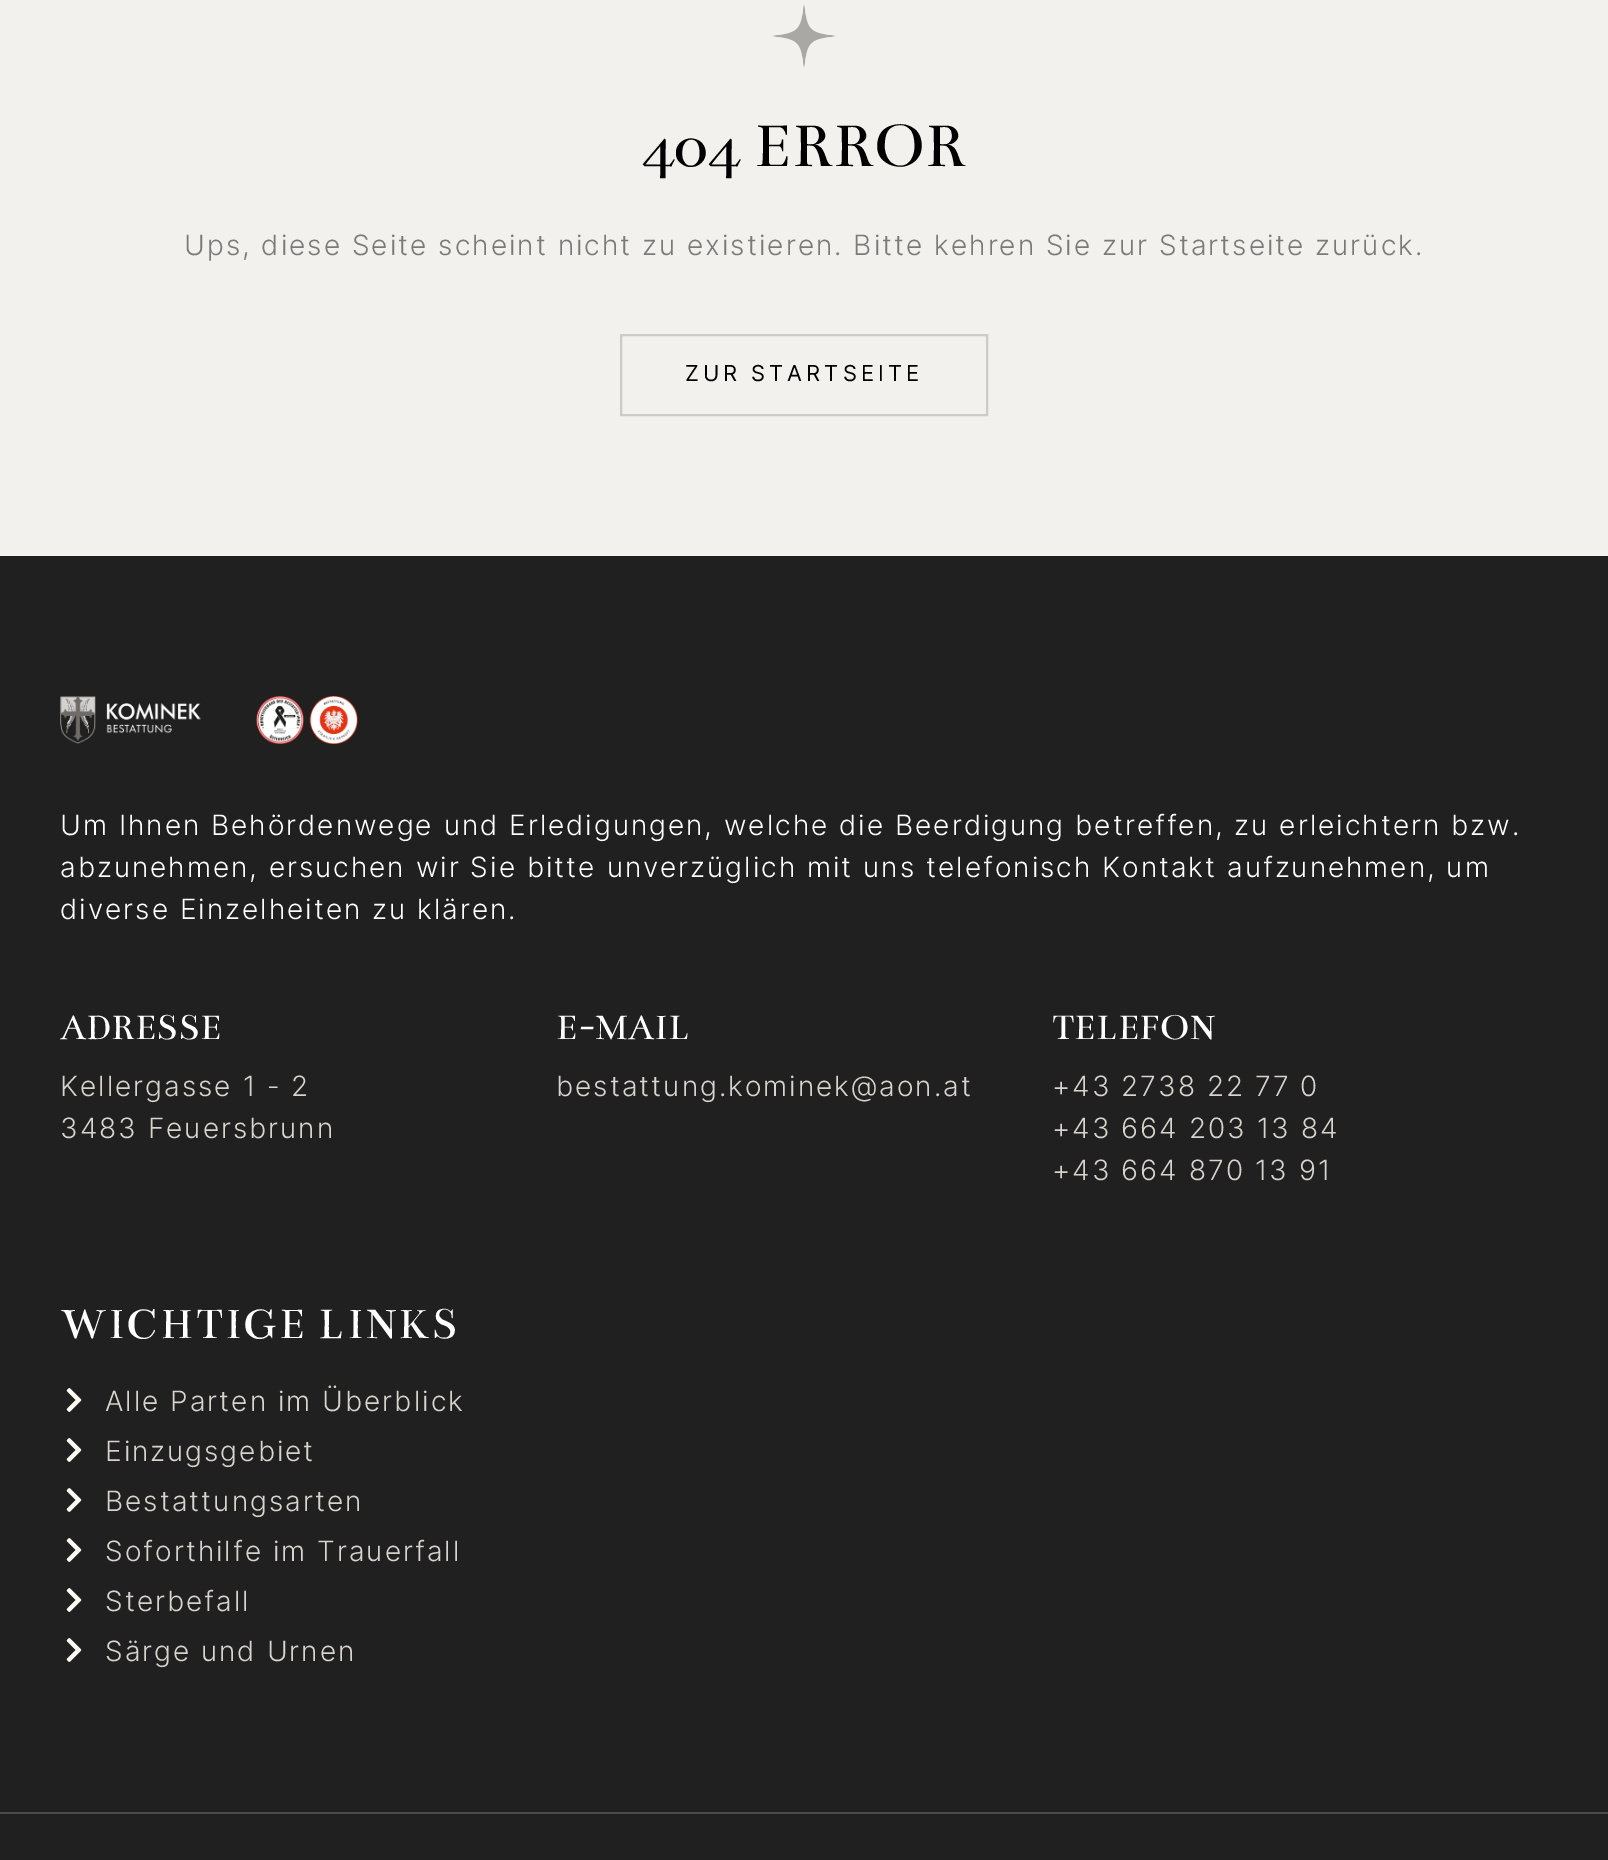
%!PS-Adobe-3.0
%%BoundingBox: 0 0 1608 1860
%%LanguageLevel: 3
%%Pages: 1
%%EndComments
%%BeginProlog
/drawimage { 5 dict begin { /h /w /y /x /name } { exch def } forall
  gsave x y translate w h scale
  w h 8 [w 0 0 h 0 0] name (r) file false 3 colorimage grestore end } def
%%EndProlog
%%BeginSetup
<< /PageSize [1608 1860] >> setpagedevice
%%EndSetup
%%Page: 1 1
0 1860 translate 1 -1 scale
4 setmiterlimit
0.953 0.945 0.929 setrgbcolor
0 0 1608 1860 rectfill
(images/1.raw) 772 4 64 64 drawimage
0.8 0.796 0.78 setrgbcolor
2 setlinewidth
621 335 366 80 rectstroke
0.125 setgray
0 556 1608 1256 rectfill
(images/2.raw) 60 696 298 48 drawimage
(images/3.raw) 66 1388 16 24 drawimage
(images/3.raw) 66 1438 16 24 drawimage
(images/3.raw) 66 1488 16 24 drawimage
(images/3.raw) 66 1538 16 24 drawimage
(images/3.raw) 66 1588 16 24 drawimage
(images/3.raw) 66 1638 16 24 drawimage
0 1814 1608 46 rectfill
0.29 setgray
0 1812 1608 2 rectfill
/Bentham-Regular [66 0 0 -66 0 0] selectfont
0.004 setgray
642 166 moveto (404 ERROR) show
/Inter-Light [28 0 0 -28 0 0] selectfont
0.478 setgray
184 255 moveto 2 0 (Ups, diese Seite scheint nicht zu existieren. Bitte kehren Sie zur Startseite zurück.) ashow
/Inter-Regular [22 0 0 -22 0 0] selectfont
0.004 setgray
685 381 moveto 4 0 (ZUR STARTSEITE) ashow
/Inter-Light [28 0 0 -28 0 0] selectfont
1 setgray
60 835 moveto 2 0 (Um Ihnen Behördenwege und Erledigungen, welche die Beerdigung betreffen, zu erleichtern bzw.) ashow
60 877 moveto 2 0 (abzunehmen, ersuchen wir Sie bitte unverzüglich mit uns telefonisch Kontakt aufzunehmen, um) ashow
60 919 moveto 2 0 (diverse Einzelheiten zu klären.) ashow
/Bentham-Regular [38 0 0 -38 0 0] selectfont
60 1039 moveto (ADRESSE) show
/Inter-Light [28 0 0 -28 0 0] selectfont
0.843 0.831 0.808 setrgbcolor
60 1096 moveto 2 0 (Kellergasse 1 - 2) ashow
60 1138 moveto 2 0 (3483 Feuersbrunn) ashow
/Bentham-Regular [38 0 0 -38 0 0] selectfont
1 setgray
556 1039 moveto (E-MAIL) show
/Inter-Light [28 0 0 -28 0 0] selectfont
0.843 0.831 0.808 setrgbcolor
556 1096 moveto 2 0 (bestattung.kominek@aon.at) ashow
/Bentham-Regular [38 0 0 -38 0 0] selectfont
1 setgray
1052 1039 moveto (TELEFON) show
/Inter-Light [28 0 0 -28 0 0] selectfont
0.843 0.831 0.808 setrgbcolor
1052 1096 moveto 2 0 (+43 2738 22 77 0) ashow
1052 1138 moveto 2 0 (+43 664 203 13 84) ashow
1052 1180 moveto 2 0 (+43 664 870 13 91) ashow
/Bentham-Regular [46 0 0 -46 0 0] selectfont
1 setgray
60 1338 moveto 2 0 (WICHTIGE LINKS) ashow
/Inter-Light [28 0 0 -28 0 0] selectfont
0.843 0.831 0.808 setrgbcolor
105 1411 moveto 2 0 (Alle Parten im Überblick) ashow
105 1461 moveto 2 0 (Einzugsgebiet) ashow
105 1511 moveto 2 0 (Bestattungsarten) ashow
105 1561 moveto 2 0 (Soforthilfe im Trauerfall) ashow
105 1611 moveto 2 0 (Sterbefall) ashow
105 1661 moveto 2 0 (Särge und Urnen) ashow
showpage
%%EOF
